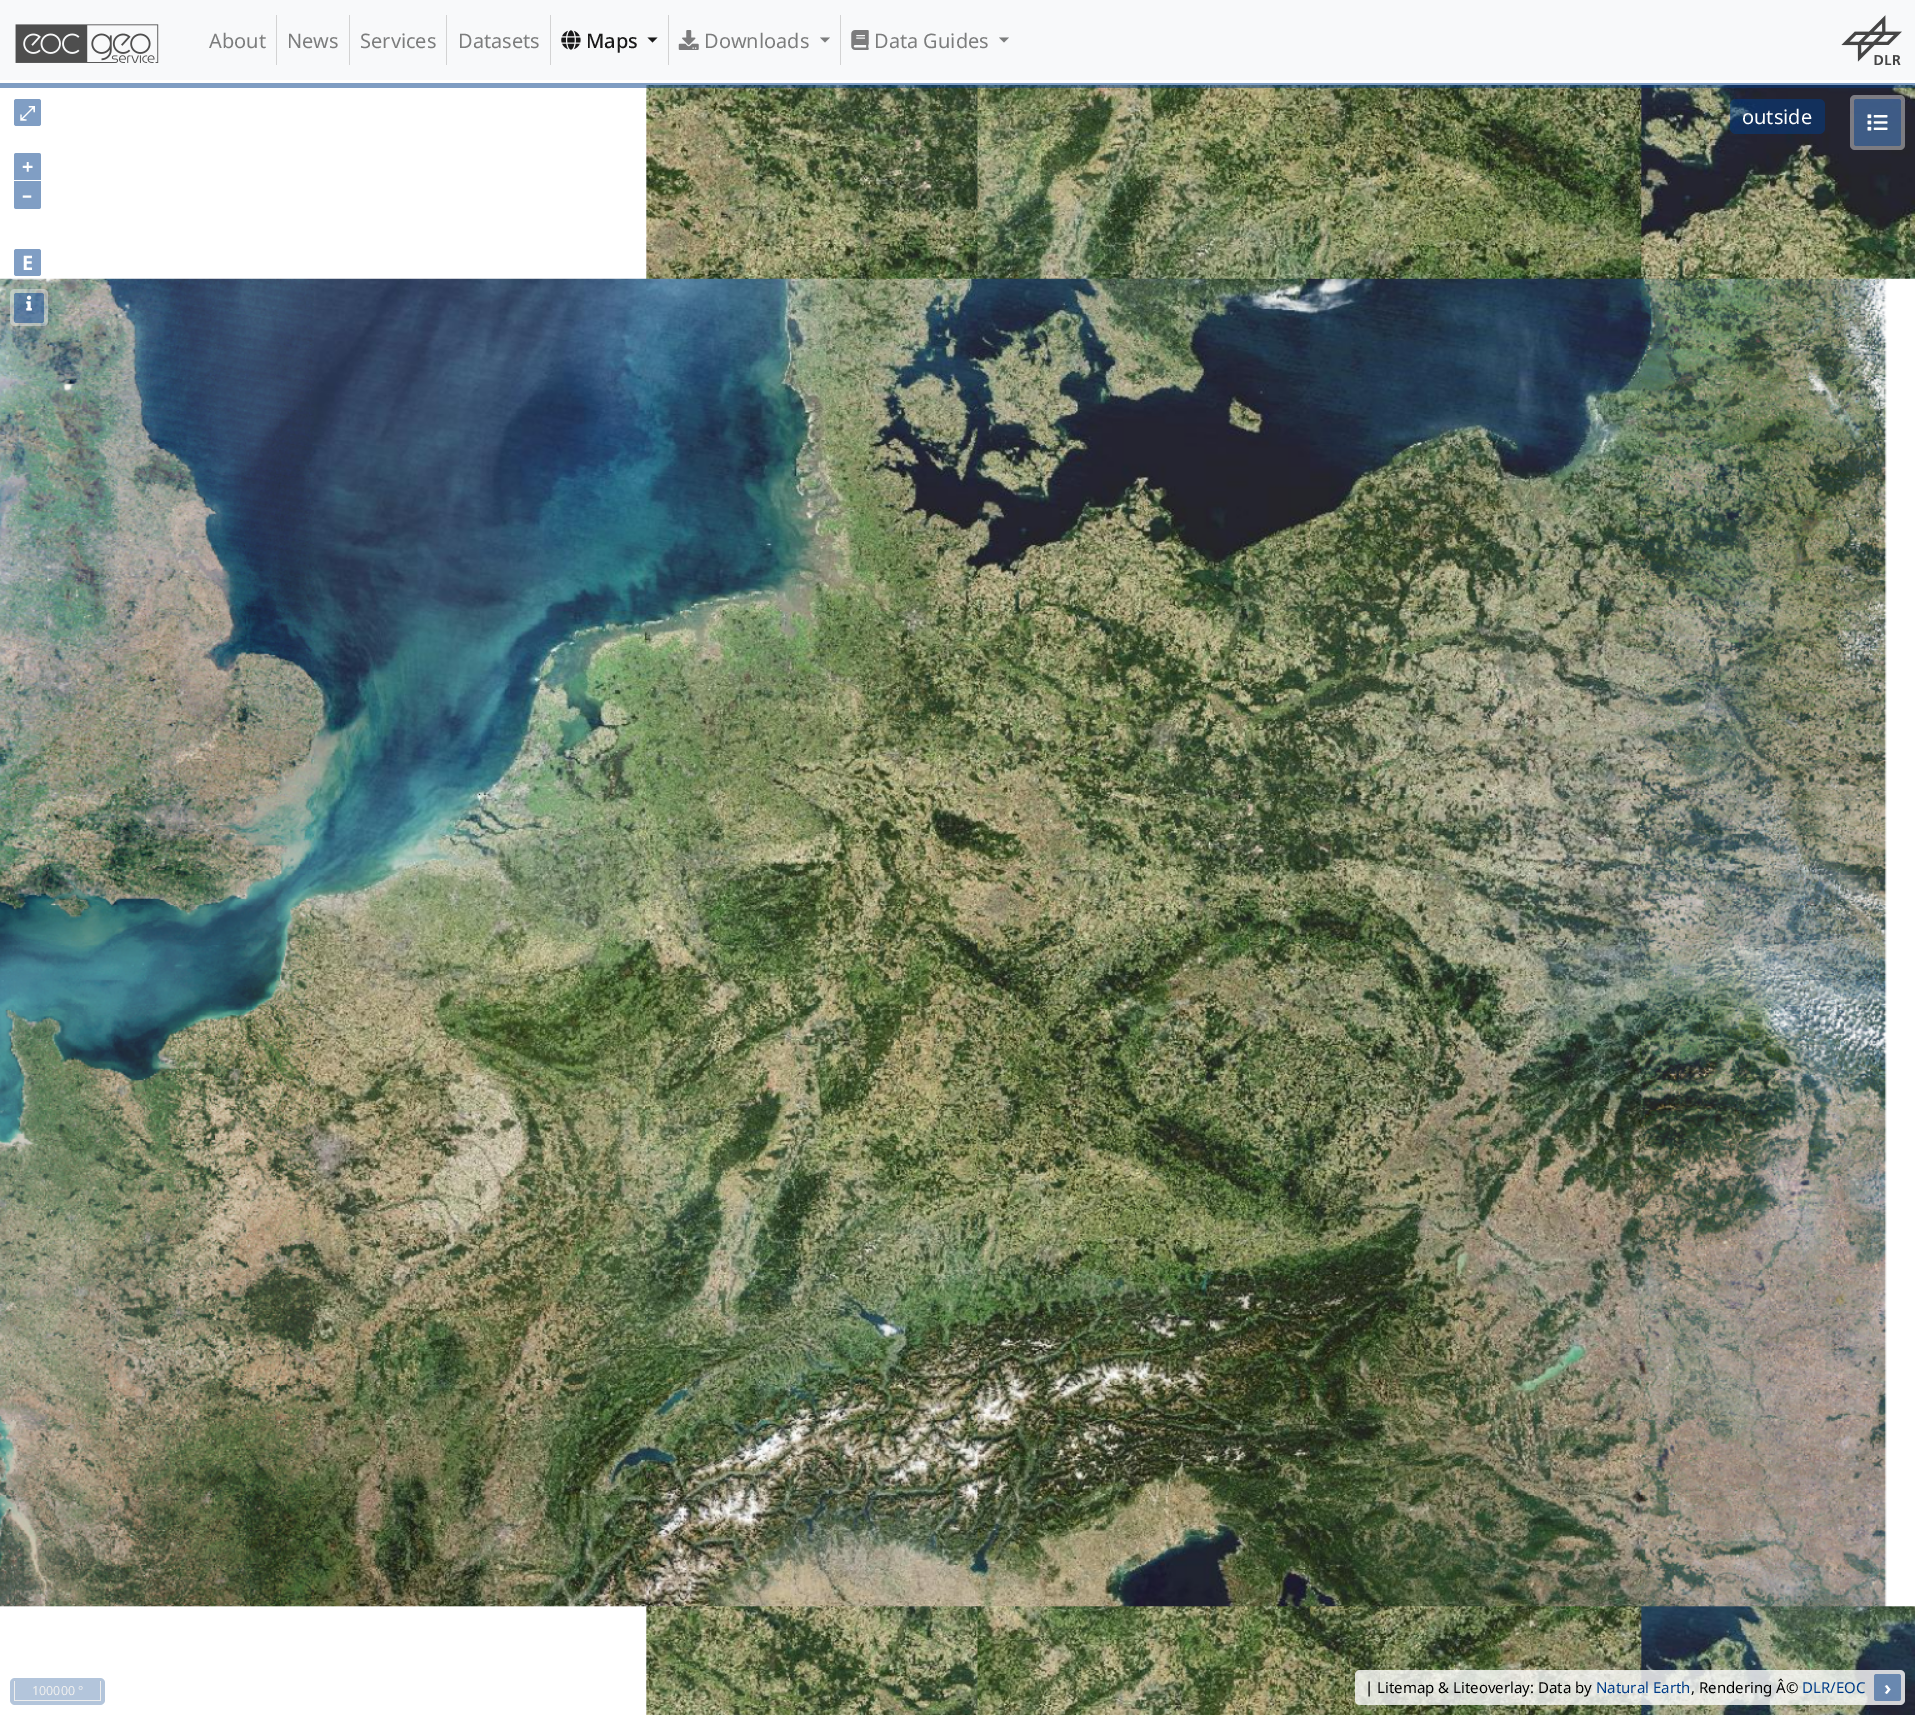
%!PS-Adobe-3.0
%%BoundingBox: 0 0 1915 1715
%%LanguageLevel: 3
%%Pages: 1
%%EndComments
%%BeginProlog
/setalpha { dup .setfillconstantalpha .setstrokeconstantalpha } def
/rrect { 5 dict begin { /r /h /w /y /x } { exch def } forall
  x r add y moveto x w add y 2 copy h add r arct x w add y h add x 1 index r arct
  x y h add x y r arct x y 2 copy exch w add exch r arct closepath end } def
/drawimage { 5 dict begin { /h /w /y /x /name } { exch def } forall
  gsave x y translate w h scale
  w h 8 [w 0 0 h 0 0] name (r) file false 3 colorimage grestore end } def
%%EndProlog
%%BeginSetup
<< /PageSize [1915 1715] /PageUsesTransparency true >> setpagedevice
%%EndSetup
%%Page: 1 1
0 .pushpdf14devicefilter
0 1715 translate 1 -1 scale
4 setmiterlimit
1 setgray
0 0 1915 1715 rectfill
0.973 0.976 0.98 setrgbcolor
0 0 1915 80 rectfill
(images/1.raw) 15 24 144 39 drawimage
0.827 setgray
276 15 1 50 rectfill
349 15 1 50 rectfill
446 15 1 50 rectfill
550 15 1 50 rectfill
668 15 1 50 rectfill
(images/2.raw) 561 30 20 20 drawimage
0.098 setgray
newpath 647.5 37.5 moveto 657.5 37.5 lineto 652.5 42.5 lineto closepath fill
0.827 setgray
840 15 1 50 rectfill
(images/3.raw) 678 30 21 20 drawimage
0.486 0.49 0.49 setrgbcolor
newpath 820 37.5 moveto 830 37.5 lineto 825 42.5 lineto closepath fill
(images/4.raw) 851 30 18 20 drawimage
newpath 999 37.5 moveto 1009 37.5 lineto 1004 42.5 lineto closepath fill
(images/5.raw) 1841 15 61 50 drawimage
(images/6.raw) 0 85 1915 1630 drawimage
0.5 setalpha
0 0.235 0.533 setrgbcolor
0 83 1915 5 rectfill
1 setalpha
0.502 0.62 0.769 setrgbcolor
14 99 27 27 2.5 rrect fill
0.5 setalpha
0 0.235 0.533 setrgbcolor
1730 99 95 35 6 rrect fill
0.4 setalpha
1 setgray
1850 95 55 55 5 rrect fill
0.5 setalpha
0 0.235 0.533 setrgbcolor
1854 99 47 47 2.5 rrect fill
1 setalpha
(images/7.raw) 1867 114 21 17 drawimage
0.502 0.62 0.769 setrgbcolor
newpath 16.5 153 moveto 38.5 153 lineto 40 153 41 154 41 155.5 curveto 41 180 lineto 14 180 lineto 14 155.5 lineto 14 154 15 153 16.5 153 curveto closepath fill
newpath 14 181 moveto 41 181 lineto 41 206.5 lineto 41 208 40 209 38.5 209 curveto 16.5 209 lineto 15 209 14 208 14 206.5 curveto closepath fill
0.4 setalpha
1 setgray
10 245 35 35 5 rrect fill
1 setalpha
0.502 0.62 0.769 setrgbcolor
14 249 27 27 2.5 rrect fill
0.4 setalpha
1 setgray
10 289 38 37 5 rrect fill
0.5 setalpha
0 0.235 0.533 setrgbcolor
14 293 30 30 2.5 rrect fill
1 setalpha
(images/8.raw) 26 295 6 16 drawimage
0.702 0.773 0.859 setrgbcolor
10 1678 95 27 5 rrect fill
0.933 setgray
100 1681 1 20 rectfill
14 1700 87 1 rectfill
14 1681 1 20 rectfill
0.8 setalpha
1 setgray
1355 1670 550 35 5 rrect fill
0.5 setalpha
0 0.235 0.533 setrgbcolor
1874 1674 27 27 2.5 rrect fill
/NotoSans-Regular [20 0 0 -20 0 0] selectfont
1 setalpha
0.486 0.49 0.49 setrgbcolor
209 48 moveto (About) show
287 48 moveto (News) show
360 48 moveto (Services) show
458 48 moveto (Datasets) show
/NotoSans-Medium [20 0 0 -20 0 0] selectfont
0.098 setgray
586 48 moveto (Maps) show
/NotoSans-Regular [20 0 0 -20 0 0] selectfont
0.486 0.49 0.49 setrgbcolor
704 48 moveto (Downloads) show
874 48 moveto (Data Guides) show
/FreeSerif-Bold [20 0 0 -20 0 0] selectfont
1 setgray
19 120 moveto (⤢) show
/NotoSans-Regular [20 0 0 -20 0 0] selectfont
1742 124 moveto (outside) show
/NotoSans-Bold [20 0 0 -20 0 0] selectfont
22 174 moveto (+) show
22 202 moveto (–) show
22 270 moveto (E) show
/NotoSans-Regular [12.5 0 0 -12.5 0 0] selectfont
0.933 setgray
32 1695 moveto (100000 °) show
/NotoSans-Regular [15 0 0 -15 0 0] selectfont
0 setgray
1365 1693 moveto (| Litemap & Liteoverlay: Data by) show
0 0.235 0.533 setrgbcolor
1596 1693 moveto (Natural Earth) show
0 setgray
1691 1693 moveto (, Rendering Â©) show
0 0.235 0.533 setrgbcolor
1802 1693 moveto (DLR/EOC) show
/NotoSans-Bold [20 0 0 -20 0 0] selectfont
1 setgray
1884 1695 moveto (›) show
.poppdf14devicefilter showpage
%%EOF
